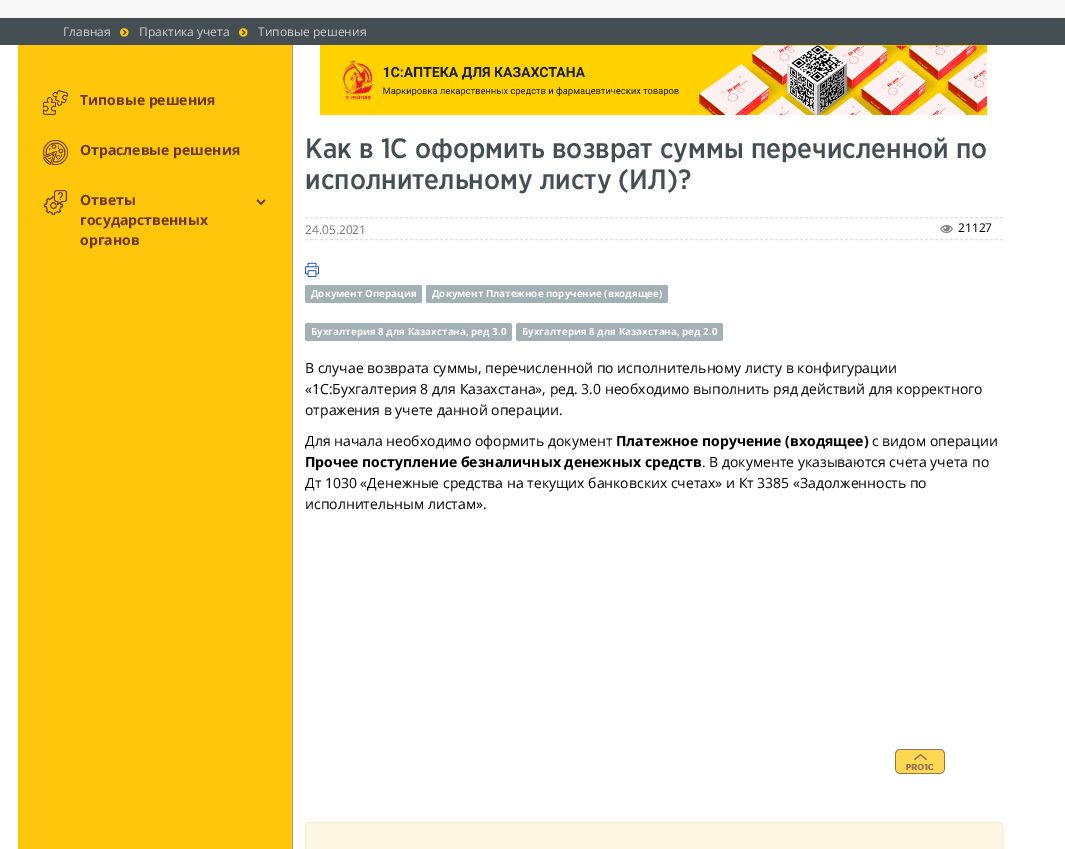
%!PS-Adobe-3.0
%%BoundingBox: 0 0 1065 849
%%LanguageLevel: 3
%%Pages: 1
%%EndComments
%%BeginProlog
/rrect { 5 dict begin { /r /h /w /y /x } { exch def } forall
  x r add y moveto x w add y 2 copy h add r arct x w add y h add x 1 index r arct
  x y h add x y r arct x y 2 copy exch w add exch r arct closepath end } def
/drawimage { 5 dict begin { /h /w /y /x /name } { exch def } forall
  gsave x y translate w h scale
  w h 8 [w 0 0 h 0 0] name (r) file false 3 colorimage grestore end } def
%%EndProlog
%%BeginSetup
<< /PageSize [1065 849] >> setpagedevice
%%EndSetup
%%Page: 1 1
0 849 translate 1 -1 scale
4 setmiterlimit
1 setgray
0 0 1065 849 rectfill
0.973 setgray
0 0 1065 18 rectfill
0.271 0.31 0.325 setrgbcolor
0 18 1065 27 rectfill
(images/1.raw) 120 28 9 9 drawimage
(images/1.raw) 239 28 9 9 drawimage
1 0.776 0.043 setrgbcolor
18 45 274 804 rectfill
0.776 0.612 0.427 setrgbcolor
292 45 1 804 rectfill
(images/2.raw) 43 90 25 25 drawimage
(images/3.raw) 43 140 25 25 drawimage
(images/4.raw) 43 190 25 25 drawimage
(images/5.raw) 256 199 10 7 drawimage
(images/6.raw) 320 45 667 70 drawimage
0.871 setgray
[3 2] 0 setdash
newpath 305 217.5 moveto 1003 217.5 lineto stroke
newpath 305 239.5 moveto 1003 239.5 lineto stroke
(images/7.raw) 940 225 13 8 drawimage
(images/8.raw) 305 262 14 15 drawimage
0.639 0.694 0.718 setrgbcolor
305 285 117 18 2.5 rrect fill
426 285 242 18 2.5 rrect fill
305 323 207 18 2.5 rrect fill
516 323 207 18 2.5 rrect fill
0.988 0.973 0.89 setrgbcolor
305.5 822.5 697 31 3.5 rrect gsave fill grestore
0.98 0.922 0.8 setrgbcolor
[] 0 setdash
stroke
(images/9.raw) 895 749 50 25 drawimage
/OpenSans-Regular [12 0 0 -12 0 0] selectfont
0.812 setgray
63 36 moveto (Главная) show
139 36 moveto (Практика учета) show
258 36 moveto (Типовые решения) show
/OpenSans-Bold [14 0 0 -14 0 0] selectfont
0.424 0.22 0.059 setrgbcolor
80 105 moveto (Типовые решения) show
80 155 moveto (Отраслевые решения) show
80 205 moveto (Ответы) show
80 225 moveto (государственных) show
80 245 moveto (органов) show
/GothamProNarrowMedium-Medium [28 0 0 -28 0 0] selectfont
0.271 0.31 0.325 setrgbcolor
305 158 moveto (Как в 1С оформить возврат суммы перечисленной по) show
305 189 moveto (исполнительному листу \(ИЛ\)?) show
/OpenSans-Regular [12 0 0 -12 0 0] selectfont
0.467 setgray
305 234 moveto (24.05.2021) show
0 setgray
958 232 moveto (21127) show
/OpenSans-Bold [9.8 0 0 -9.8 0 0] selectfont
1 setgray
311 297 moveto (Документ Операция) show
432 297 moveto (Документ Платежное поручение \(входящее\)) show
311 335 moveto (Бухгалтерия 8 для Казахстана, ред 3.0) show
522 335 moveto (Бухгалтерия 8 для Казахстана, ред 2.0) show
/OpenSans-Regular [14 0 0 -14 0 0] selectfont
0 setgray
305 373 moveto (В случае возврата суммы, перечисленной по исполнительному листу в конфигурации) show
305 394 moveto («1С:Бухгалтерия 8 для Казахстана», ред. 3.0 необходимо выполнить ряд действий для корректного) show
305 415 moveto (отражения в учете данной операции.) show
305 446 moveto (Для начала необходимо оформить документ) show
/OpenSans-Bold [14 0 0 -14 0 0] selectfont
616 446 moveto (Платежное поручение \(входящее\)) show
/OpenSans-Regular [14 0 0 -14 0 0] selectfont
872 446 moveto (с видом операции) show
/OpenSans-Bold [14 0 0 -14 0 0] selectfont
305 467 moveto (Прочее поступление безналичных денежных средств) show
/OpenSans-Regular [14 0 0 -14 0 0] selectfont
702 467 moveto (. В документе указываются счета учета по) show
305 488 moveto (Дт 1030 «Денежные средства на текущих банковских счетах» и Кт 3385 «Задолженность по) show
305 509 moveto (исполнительным листам».) show
showpage
%%EOF
